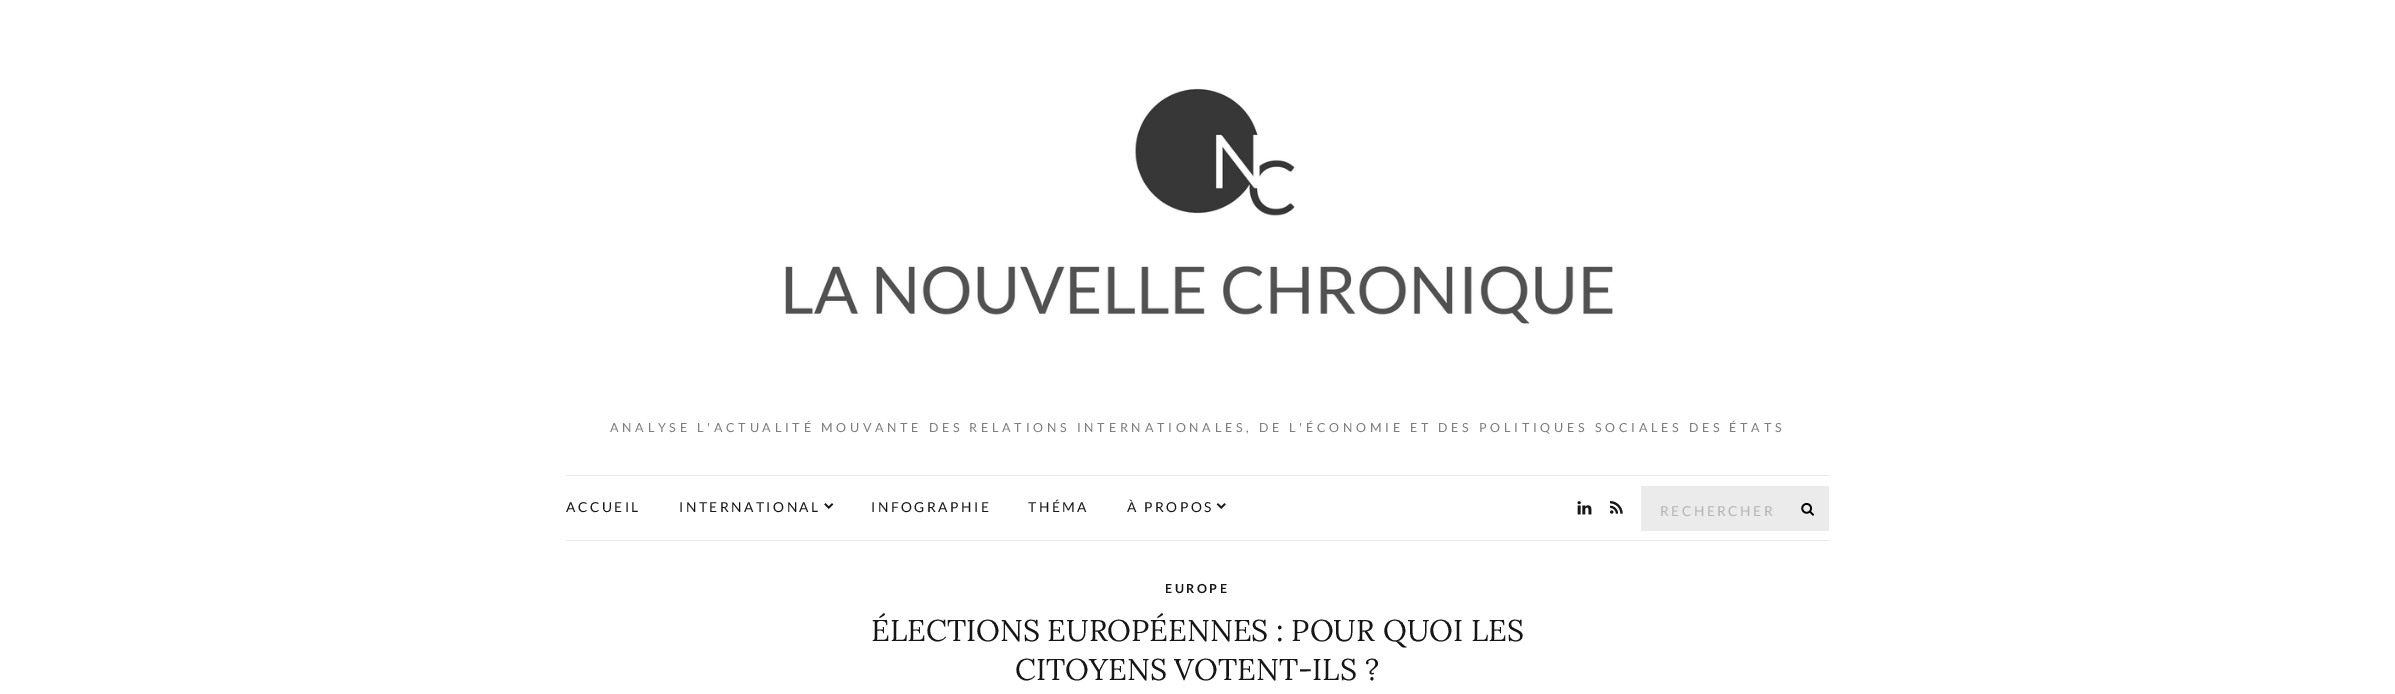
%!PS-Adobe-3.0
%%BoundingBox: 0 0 2395 694
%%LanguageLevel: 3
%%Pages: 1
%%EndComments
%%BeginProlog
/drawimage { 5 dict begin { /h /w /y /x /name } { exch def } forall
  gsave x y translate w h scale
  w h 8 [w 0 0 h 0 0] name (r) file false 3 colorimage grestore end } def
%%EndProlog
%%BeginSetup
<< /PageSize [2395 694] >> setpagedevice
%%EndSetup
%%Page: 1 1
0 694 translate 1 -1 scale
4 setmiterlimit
1 setgray
0 0 2395 694 rectfill
(images/1.raw) 785 88 828 236 drawimage
0.922 setgray
566 475 1263 1 rectfill
566 540 1263 1 rectfill
(images/2.raw) 824 503 10 6 drawimage
(images/3.raw) 1216 503 10 6 drawimage
(images/4.raw) 1577 501 15 14 drawimage
(images/5.raw) 1610 501 13 13 drawimage
1641 486 188 45 rectfill
(images/6.raw) 1801 502 13 14 drawimage
/Lato-Regular [12.5 0 0 -12.5 0 0] selectfont
0.494 setgray
610 432 moveto 3.75 0 (ANALYSE L'ACTUALITÉ MOUVANTE DES RELATIONS INTERNATIONALES, DE L'ÉCONOMIE ET DES POLITIQUES SOCIALES DES ÉTATS) ashow
/Lato-Regular [13.75 0 0 -13.75 0 0] selectfont
0.086 setgray
566 512 moveto 2.5 0 (ACCUEIL) ashow
679 512 moveto 2.5 0 (INTERNATIONAL) ashow
871 512 moveto 2.5 0 (INFOGRAPHIE) ashow
1028 512 moveto 2.5 0 (THÉMA) ashow
1127 512 moveto 2.5 0 (À PROPOS) ashow
0.706 setgray
1660 516 moveto 2.5 0 (RECHERCHER) ashow
/Lato-Bold [12.5 0 0 -12.5 0 0] selectfont
0.086 setgray
1165 593 moveto 2.5 0 (EUROPE) ashow
/Lora-Regular [30 0 0 -30 0 0] selectfont
871 641 moveto (ÉLECTIONS EUROPÉENNES : POUR QUOI LES) show
1015 680 moveto (CITOYENS VOTENT-ILS ?) show
showpage
%%EOF
